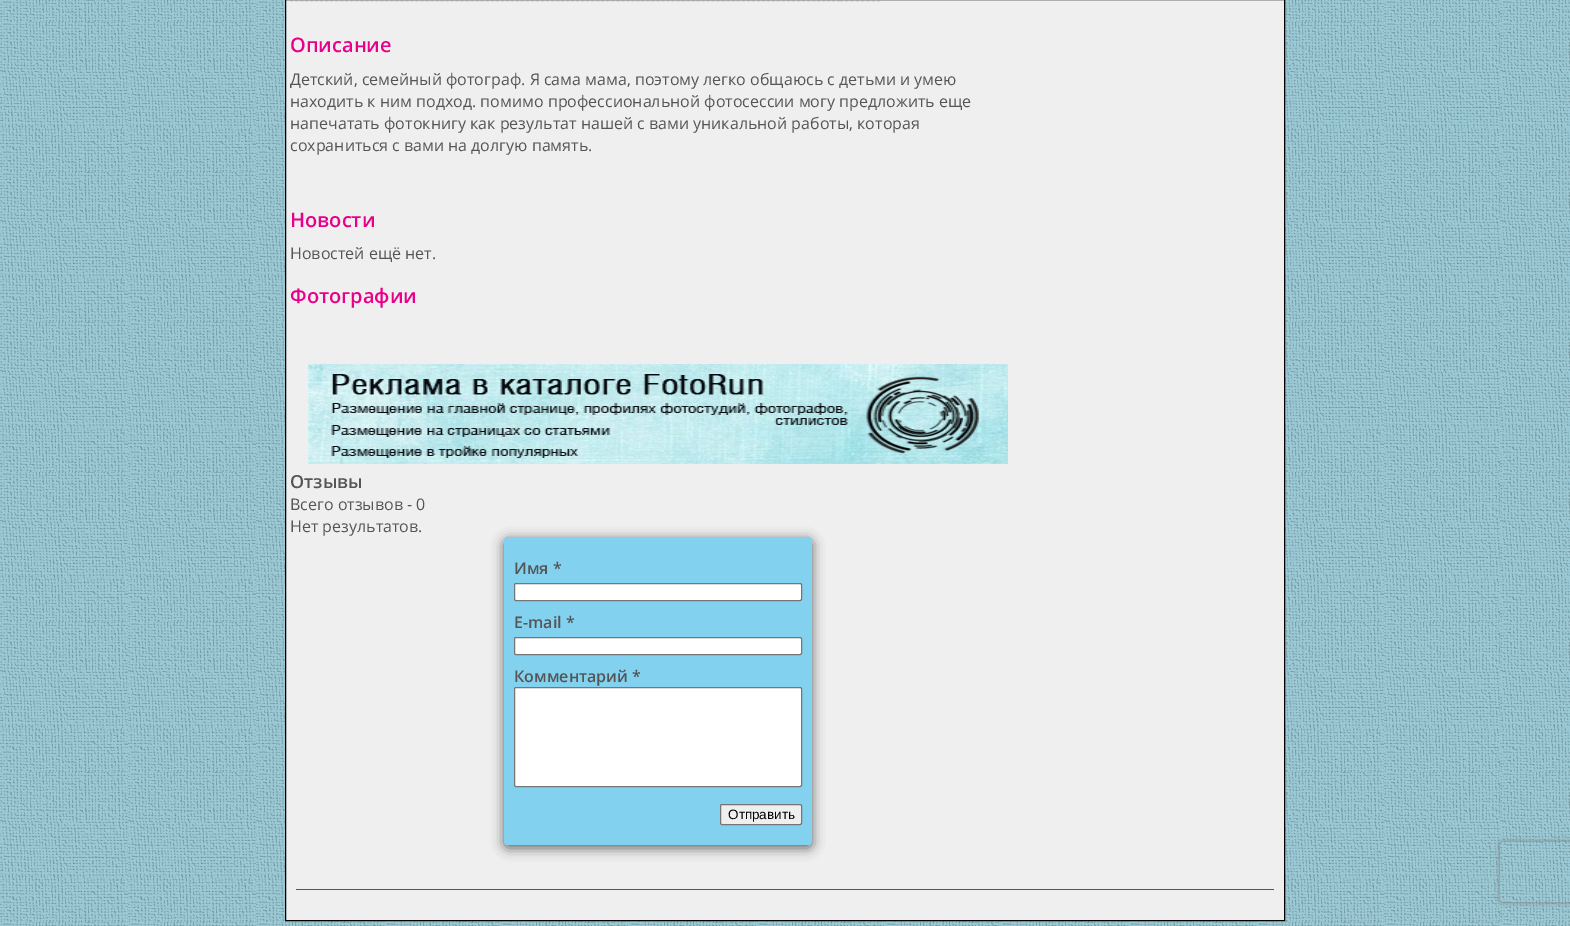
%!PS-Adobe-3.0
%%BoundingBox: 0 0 1570 926
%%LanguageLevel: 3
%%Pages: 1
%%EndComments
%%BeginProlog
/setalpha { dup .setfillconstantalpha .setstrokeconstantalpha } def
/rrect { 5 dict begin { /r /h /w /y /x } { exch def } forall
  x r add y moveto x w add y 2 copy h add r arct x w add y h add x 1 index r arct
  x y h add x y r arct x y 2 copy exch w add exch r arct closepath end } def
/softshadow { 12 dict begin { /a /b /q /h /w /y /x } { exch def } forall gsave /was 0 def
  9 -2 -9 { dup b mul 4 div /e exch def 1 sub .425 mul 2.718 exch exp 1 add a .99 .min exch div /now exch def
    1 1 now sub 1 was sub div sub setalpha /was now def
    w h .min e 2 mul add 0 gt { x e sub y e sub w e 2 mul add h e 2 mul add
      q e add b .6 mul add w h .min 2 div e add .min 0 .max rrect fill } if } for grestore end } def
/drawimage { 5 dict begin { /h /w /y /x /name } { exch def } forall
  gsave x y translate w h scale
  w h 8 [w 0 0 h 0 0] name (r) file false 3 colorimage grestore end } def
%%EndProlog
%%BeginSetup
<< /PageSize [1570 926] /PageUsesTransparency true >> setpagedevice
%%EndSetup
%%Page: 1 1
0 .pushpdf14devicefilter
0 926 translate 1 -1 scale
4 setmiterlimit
1 setgray
0 0 1570 926 rectfill
(images/1.raw) 0 0 1570 926 drawimage
0.937 setgray
newpath 285.5 -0.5 moveto 1284.5 -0.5 lineto 1284.5 920.5 lineto 285.5 920.5 lineto closepath gsave fill grestore
0 setgray
stroke
0.655 setgray
[3 2.02] 0 setdash
newpath 290 0.5 moveto 840 0.5 lineto stroke
[3 2.29] 0 setdash
newpath 840 0.5 moveto 880 0.5 lineto stroke
(images/2.raw) 308 364 700 100 drawimage
0 setgray
504 540 308 308 4 6 0.6 softshadow
0.506 0.82 0.937 setrgbcolor
504 537 308 308 4 rrect fill
1 setgray
514.5 583.5 287 17 1.5 rrect gsave fill grestore
0.463 setgray
[] 0 setdash
stroke
1 setgray
514.5 637.5 287 17 1.5 rrect gsave fill grestore
0.463 setgray
stroke
1 setgray
514.5 687.5 287 99 1.5 rrect gsave fill grestore
0.463 setgray
stroke
0.937 setgray
720.5 804.5 81 20 1.5 rrect gsave fill grestore
0.463 setgray
stroke
gsave
newpath 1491 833 moveto 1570 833 lineto 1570 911 lineto 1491 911 lineto closepath 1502 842 moveto 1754 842 lineto 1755 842 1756 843 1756 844 curveto 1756 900 lineto 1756 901 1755 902 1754 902 curveto 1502 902 lineto 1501 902 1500 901 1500 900 curveto 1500 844 lineto 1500 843 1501 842 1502 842 curveto closepath eoclip newpath
0.502 setgray
1500 842 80 60 2 2.5 1 softshadow
grestore
0.91 0 0.537 setrgbcolor
296 889 978 1 rectfill
/OpenSans-SemiBold [20 0 0 -20 0 0] selectfont
290 52 moveto (Описание) show
/OpenSans-Regular [16 0 0 -16 0 0] selectfont
0.333 setgray
290 85 moveto (Детский, семейный фотограф. Я сама мама, поэтому легко общаюсь с детьми и умею) show
290 107 moveto (находить к ним подход. помимо профессиональной фотосессии могу предложить еще) show
290 129 moveto (напечатать фотокнигу как результат нашей с вами уникальной работы, которая) show
290 151 moveto (сохраниться с вами на долгую память.) show
/OpenSans-SemiBold [20 0 0 -20 0 0] selectfont
0.91 0 0.537 setrgbcolor
290 227 moveto (Новости) show
/OpenSans-Regular [16 0 0 -16 0 0] selectfont
0.333 setgray
290 259 moveto (Новостей ещё нет.) show
/OpenSans-SemiBold [20 0 0 -20 0 0] selectfont
0.91 0 0.537 setrgbcolor
290 303 moveto (Фотографии) show
/OpenSans-SemiBold [18 0 0 -18 0 0] selectfont
0.333 setgray
290 488 moveto (Отзывы) show
/OpenSans-Regular [16 0 0 -16 0 0] selectfont
290 510 moveto (Всего отзывов - 0) show
290 532 moveto (Нет результатов.) show
/OpenSans-SemiBold [16 0 0 -16 0 0] selectfont
514 574 moveto (Имя *) show
514 628 moveto (E-mail *) show
514 682 moveto (Комментарий *) show
/LiberationSans-Regular [13.5 0 0 -13.5 0 0] selectfont
0 setgray
728 819 moveto (Отправить) show
.poppdf14devicefilter showpage
%%EOF
